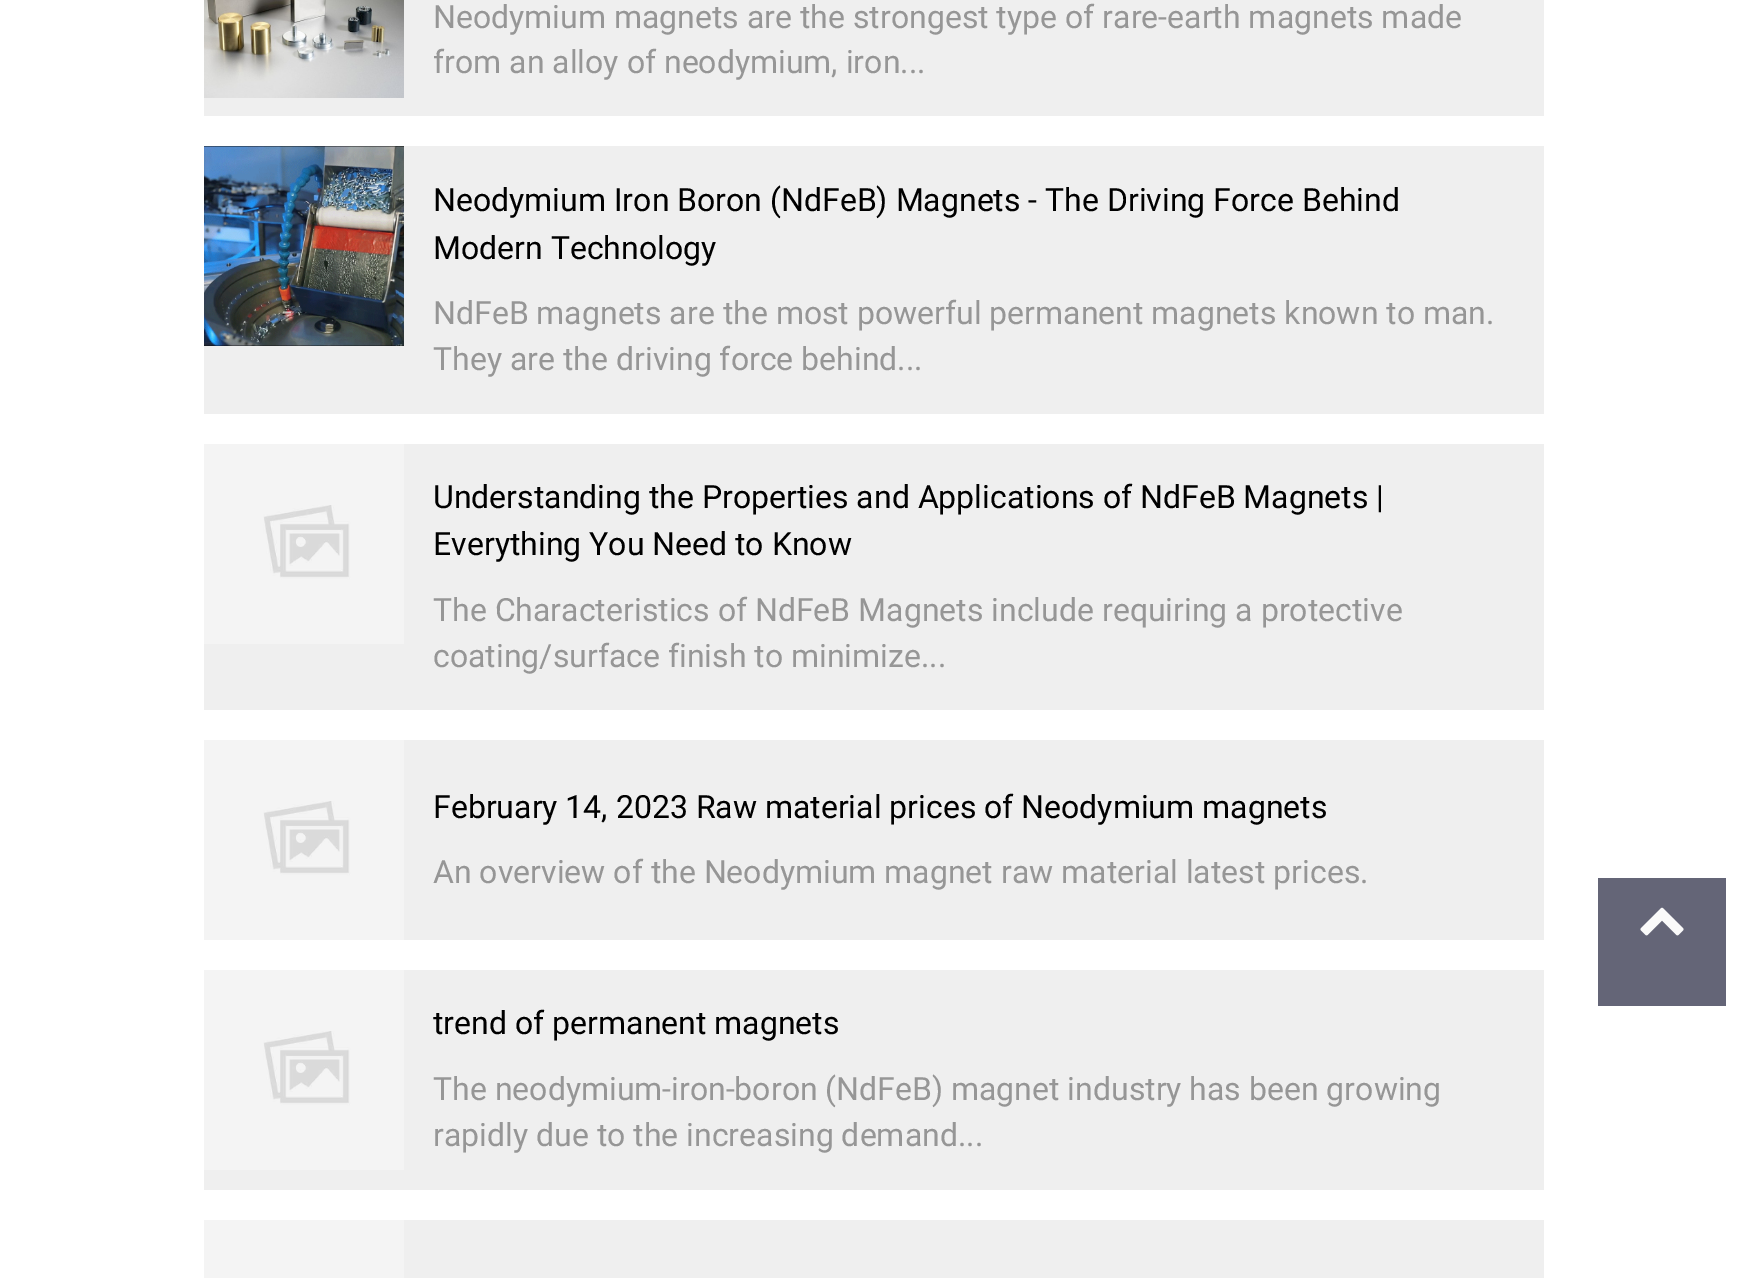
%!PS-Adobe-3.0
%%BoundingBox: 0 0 1746 1278
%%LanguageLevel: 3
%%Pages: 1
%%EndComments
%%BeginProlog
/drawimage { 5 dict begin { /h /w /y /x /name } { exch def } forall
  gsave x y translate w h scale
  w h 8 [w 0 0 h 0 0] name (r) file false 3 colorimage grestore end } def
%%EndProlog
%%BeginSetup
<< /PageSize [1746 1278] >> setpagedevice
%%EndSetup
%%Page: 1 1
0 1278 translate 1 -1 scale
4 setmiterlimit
1 setgray
0 0 1746 1278 rectfill
0.937 setgray
204 0 1340 116 rectfill
(images/1.raw) 204 0 200 98 drawimage
204 146 1340 268 rectfill
(images/2.raw) 204 146 200 200 drawimage
204 444 1340 266 rectfill
(images/3.raw) 204 444 200 200 drawimage
404 740 1140 200 rectfill
(images/4.raw) 204 740 200 200 drawimage
204 970 1340 220 rectfill
(images/5.raw) 204 970 200 200 drawimage
404 1220 1140 58 rectfill
0.957 setgray
204 1220 200 58 rectfill
0.392 0.396 0.467 setrgbcolor
1598 878 128 128 rectfill
(images/6.raw) 1640 907 44 29 drawimage
/Roboto-Regular [32 0 0 -32 0 0] selectfont
0.588 setgray
433 28 moveto (Neodymium magnets are the strongest type of rare-earth magnets made) show
433 73 moveto (from an alloy of neodymium, iron...) show
0 setgray
433 211 moveto (Neodymium Iron Boron \(NdFeB\) Magnets - The Driving Force Behind) show
433 259 moveto (Modern Technology) show
0.588 setgray
433 324 moveto (NdFeB magnets are the most powerful permanent magnets known to man.) show
433 370 moveto (They are the driving force behind...) show
0 setgray
433 508 moveto (Understanding the Properties and Applications of NdFeB Magnets |) show
433 555 moveto (Everything You Need to Know) show
0.588 setgray
433 621 moveto (The Characteristics of NdFeB Magnets include requiring a protective) show
433 667 moveto (coating/surface finish to minimize...) show
0 setgray
433 818 moveto (February 14, 2023 Raw material prices of Neodymium magnets) show
0.588 setgray
433 883 moveto (An overview of the Neodymium magnet raw material latest prices.) show
0 setgray
433 1034 moveto (trend of permanent magnets) show
0.588 setgray
433 1100 moveto (The neodymium-iron-boron \(NdFeB\) magnet industry has been growing) show
433 1146 moveto (rapidly due to the increasing demand...) show
showpage
%%EOF
